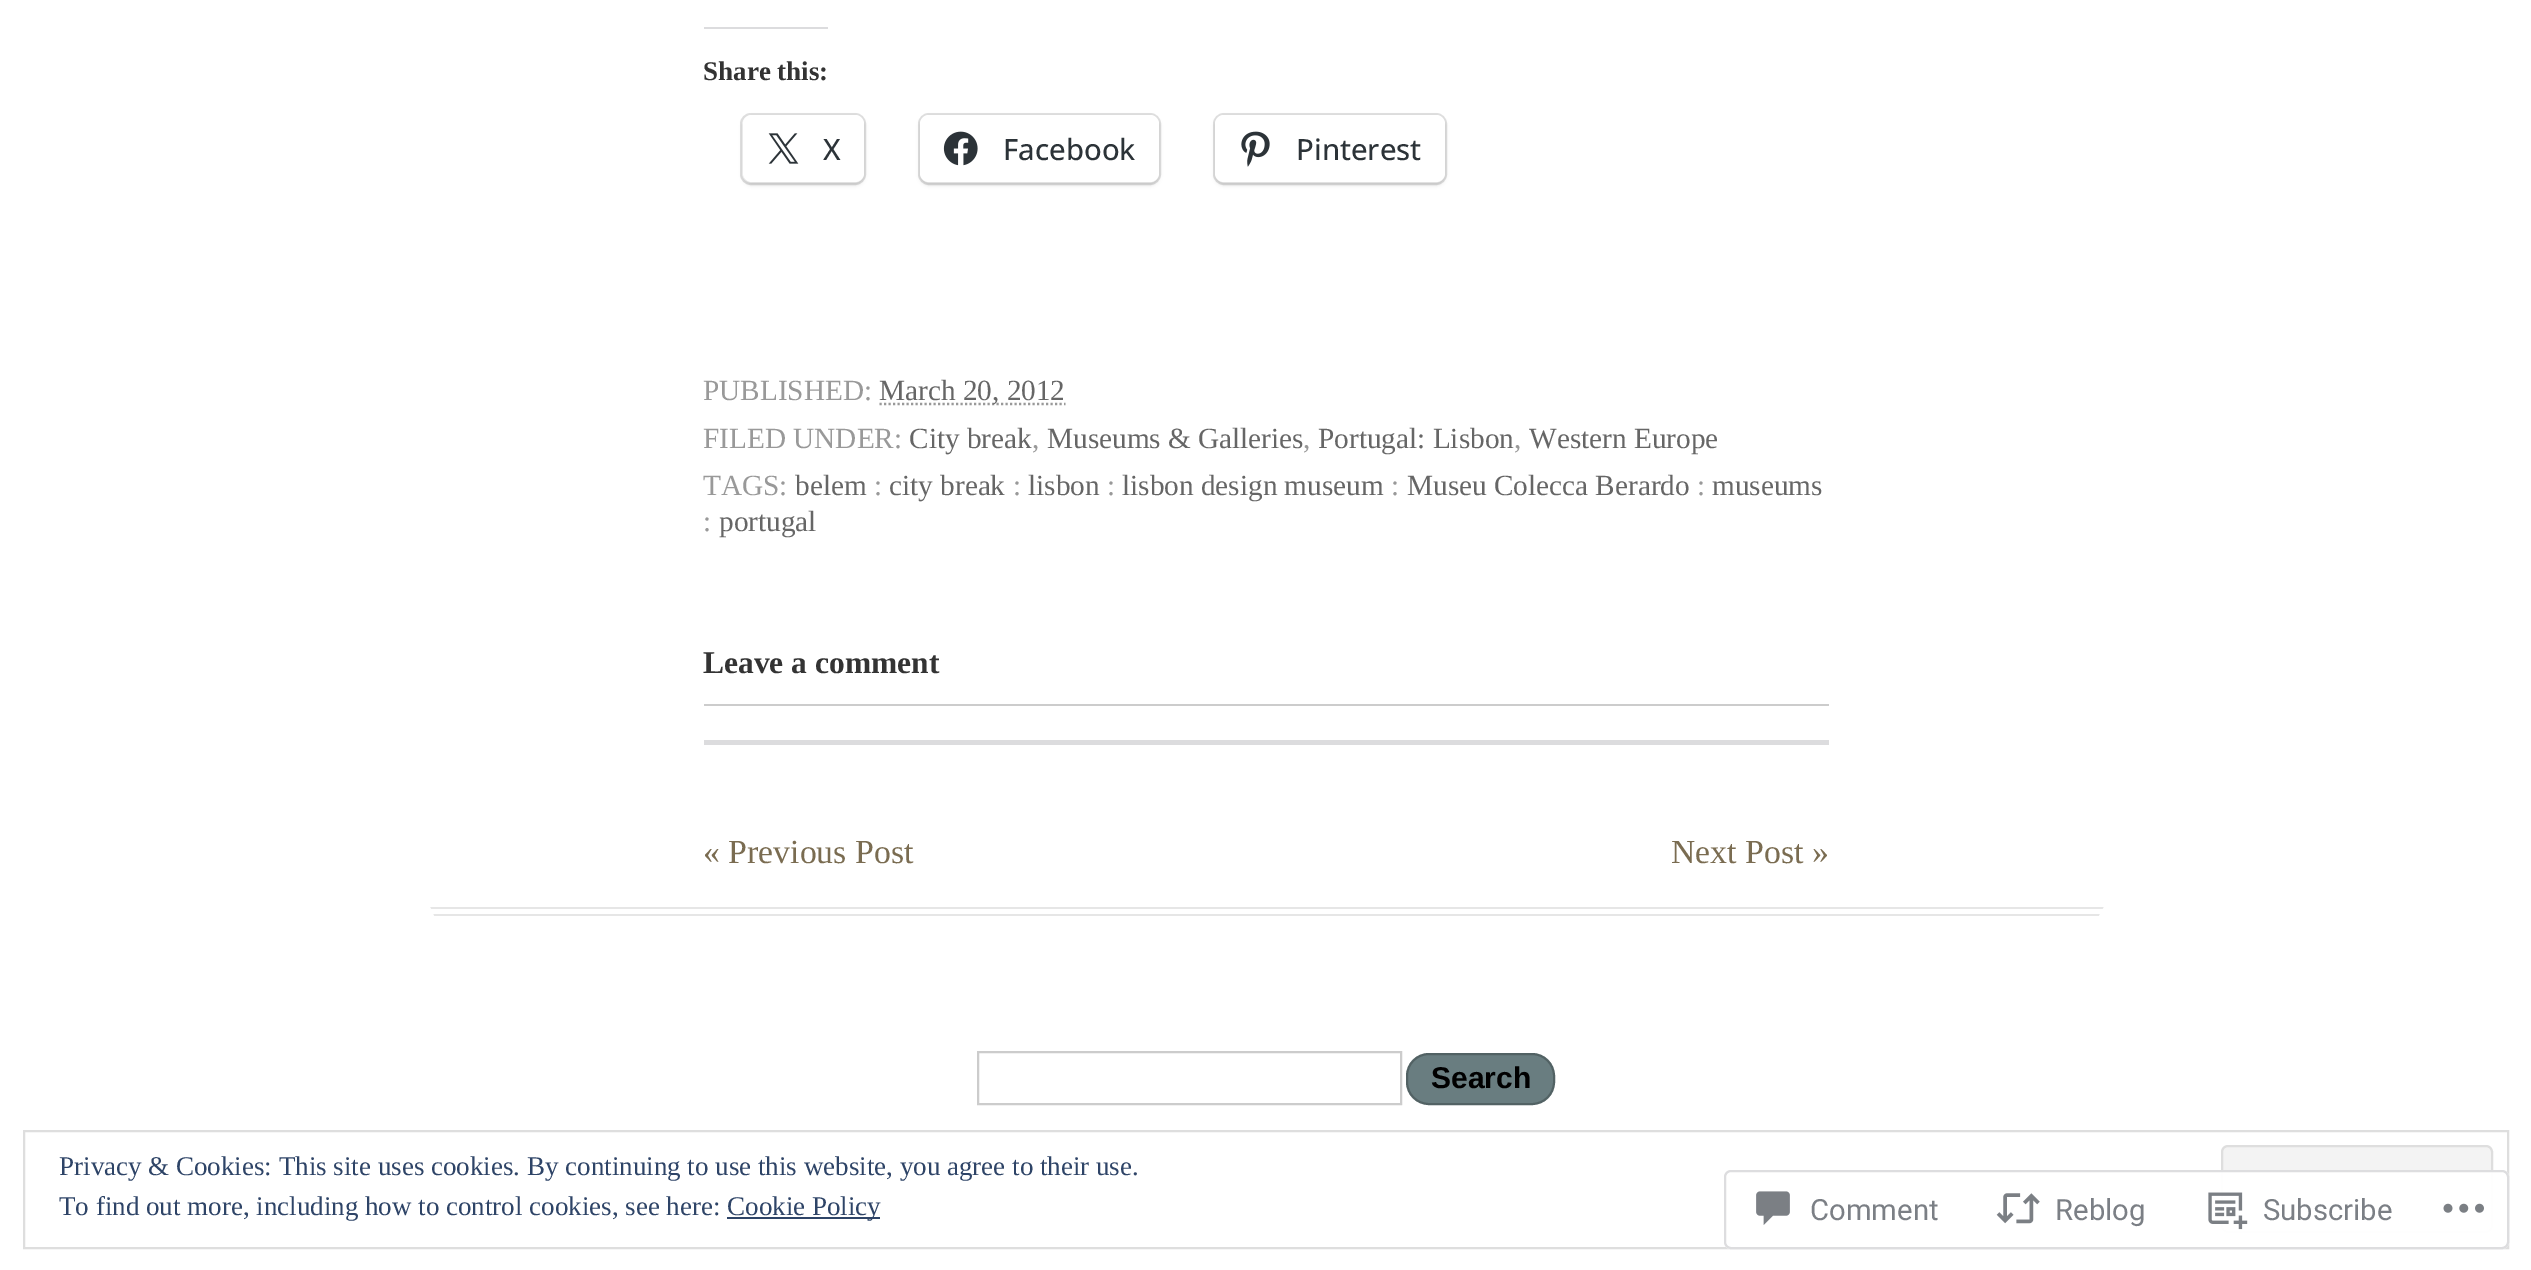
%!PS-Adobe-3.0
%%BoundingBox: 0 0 2531 1270
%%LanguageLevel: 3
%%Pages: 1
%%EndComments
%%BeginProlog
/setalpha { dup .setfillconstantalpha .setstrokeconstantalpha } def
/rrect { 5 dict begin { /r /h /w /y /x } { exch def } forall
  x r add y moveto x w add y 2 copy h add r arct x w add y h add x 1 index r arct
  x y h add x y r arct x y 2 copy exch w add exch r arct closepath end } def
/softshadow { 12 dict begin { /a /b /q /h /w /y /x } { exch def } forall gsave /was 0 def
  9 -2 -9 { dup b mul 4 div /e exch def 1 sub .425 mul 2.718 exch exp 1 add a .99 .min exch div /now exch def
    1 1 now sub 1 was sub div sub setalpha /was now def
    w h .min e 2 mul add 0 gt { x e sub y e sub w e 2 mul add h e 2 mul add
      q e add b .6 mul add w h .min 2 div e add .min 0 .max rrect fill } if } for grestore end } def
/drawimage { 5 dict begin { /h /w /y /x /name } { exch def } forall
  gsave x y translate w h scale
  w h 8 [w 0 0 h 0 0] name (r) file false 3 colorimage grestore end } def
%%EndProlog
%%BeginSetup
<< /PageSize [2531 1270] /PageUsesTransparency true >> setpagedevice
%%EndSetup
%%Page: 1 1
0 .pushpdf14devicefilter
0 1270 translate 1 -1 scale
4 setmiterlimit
1 setgray
0 0 2531 1270 rectfill
0.863 0.863 0.871 setrgbcolor
704 27 124 2 rectfill
0.878 setgray
2 setlinewidth
741 114 124 70 10 rrect stroke
0 setgray
743 117 121 68 9 2 0.12 softshadow
1 setgray
743 115 121 67 9 rrect fill
(images/1.raw) 768 133 31 31 drawimage
0.878 setgray
919 114 241 70 10 rrect stroke
0 setgray
920 117 239 68 9 2 0.12 softshadow
1 setgray
920 115 239 67 9 rrect fill
(images/2.raw) 943 131 35 35 drawimage
0.878 setgray
1214 114 232 70 10 rrect stroke
0 setgray
1215 117 230 68 9 2 0.12 softshadow
1 setgray
1215 115 230 67 9 rrect fill
(images/3.raw) 1241 131 29 36 drawimage
0.6 setgray
2.2 setlinewidth
[2.25 2.25] 0 setdash
newpath 879.5 404 moveto 1065.5 404 lineto stroke
0.8 setgray
704 704 1125 2 rectfill
0.863 0.863 0.871 setrgbcolor
704 740 1125 5 rectfill
0.902 setgray
430 907 1674 2 rectfill
430 914 1674 2 rectfill
1 setgray
newpath 2104 907 moveto 2104 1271 lineto 2099 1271 lineto 2099 916 lineto closepath fill
newpath 430 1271 moveto 430 907 lineto 434 916 lineto 434 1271 lineto closepath fill
0.8 setgray
2 setlinewidth
[] 0 setdash
978 1052 423 52 rectstroke
0.412 0.49 0.502 setrgbcolor
1407 1054 147 50 22 rrect gsave fill grestore
0.322 0.384 0.392 setrgbcolor
stroke
0.871 setgray
24 1131 2484 117 rectstroke
0.953 setgray
2222 1146 270 86 6 rrect gsave fill grestore
0.871 setgray
stroke
0.18 0.267 0.404 setrgbcolor
727 1217 153 2 rectfill
0.98 setalpha
1 setgray
1724 1170 785 79 7 rrect fill
0.863 0.863 0.871 setrgbcolor
1725 1171 783 77 6 rrect stroke
1 setalpha
(images/4.raw) 1756 1191 34 34 drawimage
(images/5.raw) 1996 1193 44 31 drawimage
(images/6.raw) 2208 1192 40 38 drawimage
(images/7.raw) 2443 1203 41 10 drawimage
/LiberationSerif-Bold [27 0 0 -27 0 0] selectfont
0.2 setgray
703 80 moveto (Share this:) show
/OpenSans-Medium [29.25 0 0 -29.25 0 0] selectfont
0.173 0.2 0.22 setrgbcolor
823 160 moveto (X) show
1003 160 moveto (Facebook) show
1296 160 moveto (Pinterest) show
/LiberationSerif-Regular [29.25 0 0 -29.25 0 0] selectfont
0.6 setgray
703 400 moveto (PUBLISHED:) show
0.4 setgray
879 400 moveto (March 20, 2012) show
0.6 setgray
703 448 moveto (FILED UNDER:) show
0.4 setgray
909 448 moveto (City break) show
0.6 setgray
1032 448 moveto (,) show
0.4 setgray
1047 448 moveto (Museums & Galleries) show
0.6 setgray
1303 448 moveto (,) show
0.4 setgray
1318 448 moveto (Portugal: Lisbon) show
0.6 setgray
1514 448 moveto (,) show
0.4 setgray
1529 448 moveto (Western Europe) show
0.6 setgray
703 495 moveto (TAGS:) show
0.4 setgray
795 495 moveto (belem) show
0.6 setgray
874 495 moveto (:) show
0.4 setgray
889 495 moveto (city break) show
0.6 setgray
1013 495 moveto (:) show
0.4 setgray
1028 495 moveto (lisbon) show
0.6 setgray
1107 495 moveto (:) show
0.4 setgray
1122 495 moveto (lisbon design museum) show
0.6 setgray
1391 495 moveto (:) show
0.4 setgray
1407 495 moveto (Museu Colecca Berardo) show
0.6 setgray
1697 495 moveto (:) show
0.4 setgray
1712 495 moveto (museums) show
0.6 setgray
703 531 moveto (:) show
0.4 setgray
719 531 moveto (portugal) show
/LiberationSerif-Bold [31.5 0 0 -31.5 0 0] selectfont
0.2 setgray
703 673 moveto (Leave a comment) show
/LiberationSerif-Regular [33.75 0 0 -33.75 0 0] selectfont
0.478 0.424 0.318 setrgbcolor
703 863 moveto (« Previous Post) show
1671 863 moveto (Next Post ») show
/LiberationSans-Bold [30 0 0 -30 0 0] selectfont
0 setgray
1431 1088 moveto (Search) show
/LiberationSerif-Regular [27 0 0 -27 0 0] selectfont
0.18 0.267 0.404 setrgbcolor
59 1175 moveto (Privacy & Cookies: This site uses cookies. By continuing to use this website, you agree to their use.) show
59 1215 moveto (To find out more, including how to control cookies, see here:) show
727 1215 moveto (Cookie Policy) show
/Roboto-Regular [29.25 0 0 -29.25 0 0] selectfont
0.482 0.498 0.522 setrgbcolor
1810 1220 moveto (Comment) show
2055 1220 moveto (Reblog) show
2263 1220 moveto (Subscribe) show
.poppdf14devicefilter showpage
%%EOF
